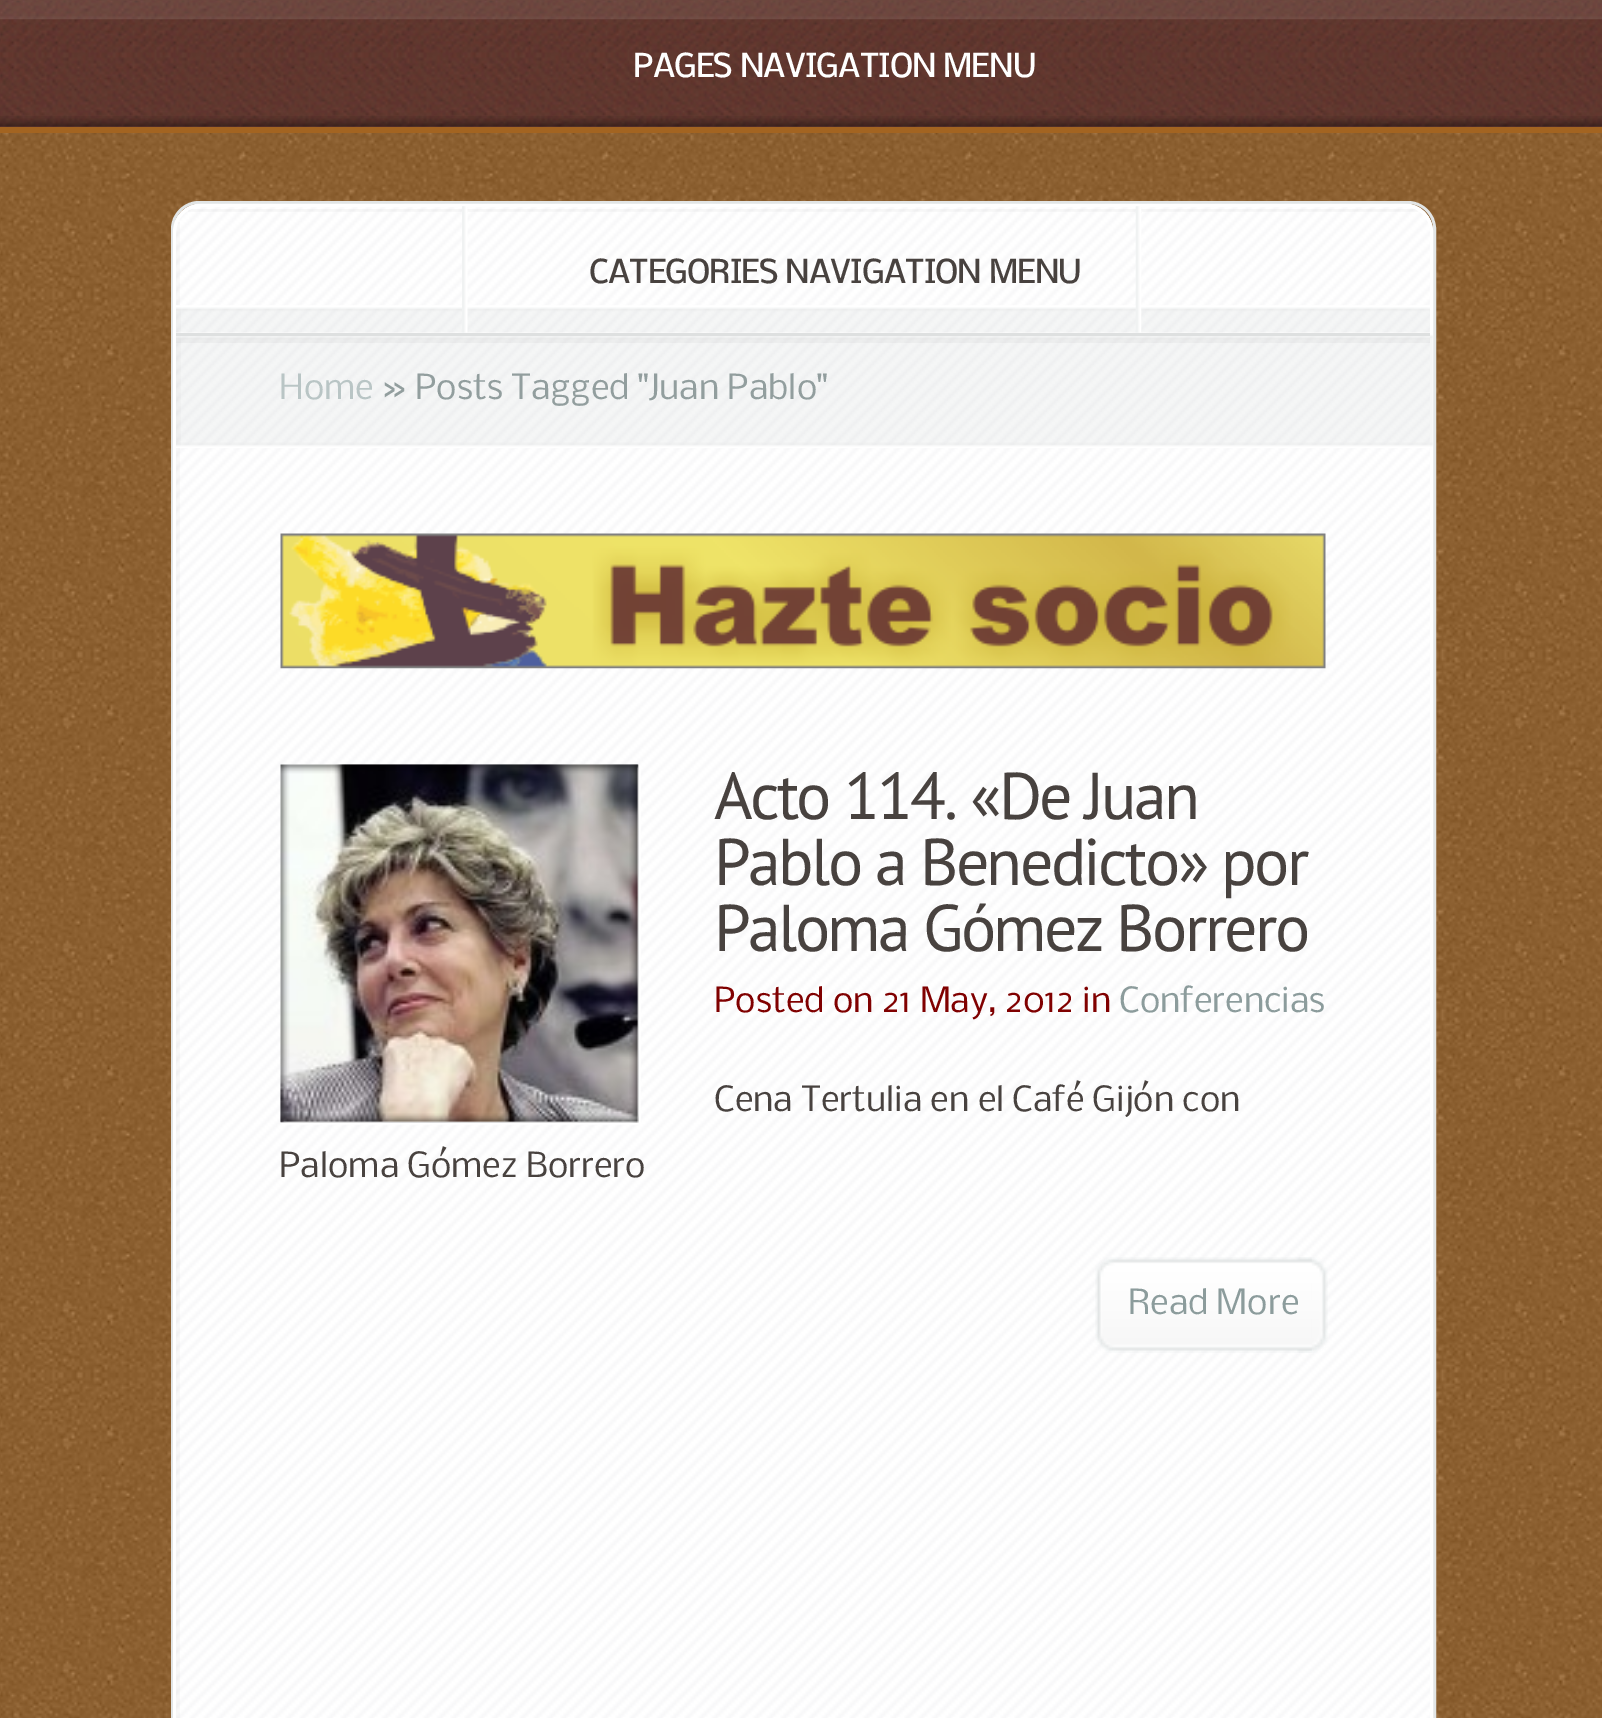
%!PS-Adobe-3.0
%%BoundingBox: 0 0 1602 1718
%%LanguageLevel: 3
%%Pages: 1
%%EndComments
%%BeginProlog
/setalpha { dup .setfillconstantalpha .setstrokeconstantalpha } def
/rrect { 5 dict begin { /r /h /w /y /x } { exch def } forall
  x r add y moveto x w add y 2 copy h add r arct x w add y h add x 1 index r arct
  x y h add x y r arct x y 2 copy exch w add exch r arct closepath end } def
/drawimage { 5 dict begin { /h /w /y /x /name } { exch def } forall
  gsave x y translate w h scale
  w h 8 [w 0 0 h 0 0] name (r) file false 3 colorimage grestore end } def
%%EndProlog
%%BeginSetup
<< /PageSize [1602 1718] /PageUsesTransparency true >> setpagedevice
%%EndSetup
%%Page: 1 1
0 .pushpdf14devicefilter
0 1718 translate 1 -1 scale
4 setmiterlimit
1 setgray
0 0 1602 1718 rectfill
(images/1.raw) 0 0 1602 127 drawimage
(images/2.raw) 0 0 1602 20 drawimage
(images/3.raw) 0 116 1602 11 drawimage
0.639 0.392 0.129 setrgbcolor
0 127 1602 1591 rectfill
(images/4.raw) 0 133 1602 1585 drawimage
0.886 0.898 0.898 setrgbcolor
3 setlinewidth
172.5 202.5 1262 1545 26.5 rrect stroke
(images/5.raw) 174 203 1259 1515 drawimage
1 setgray
174.5 205.5 1257 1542 26.5 rrect stroke
(images/6.raw) 176 222 4 1496 drawimage
(images/7.raw) 188 209 1230 3 drawimage
(images/8.raw) 176 305 1254 28 drawimage
(images/9.raw) 462 206 6 127 drawimage
(images/10.raw) 1135 206 7 127 drawimage
(images/11.raw) 176 332 1257 116 drawimage
0.03 setalpha
0 setgray
176 338 1254 5 rectfill
1 setalpha
0.871 0.878 0.878 setrgbcolor
176 333 1254 3 rectfill
(images/12.raw) 280 533 1046 136 drawimage
(images/13.raw) 280 764 358 358 drawimage
(images/14.raw) 280 764 361 361 drawimage
(images/15.raw) 1297 1257 31 96 drawimage
(images/16.raw) 1095 1257 217 96 drawimage
/Nobile-Bold [30.25 0 0 -30.25 0 0] selectfont
1 setgray
633 77 moveto (PAGES NAVIGATION MENU) show
0.282 0.259 0.247 setrgbcolor
589 283 moveto (CATEGORIES NAVIGATION MENU) show
/Nobile-Regular [33 0 0 -33 0 0] selectfont
0.725 0.773 0.773 setrgbcolor
279 399 moveto (Home) show
0.573 0.62 0.62 setrgbcolor
382 399 moveto (» Posts Tagged "Juan Pablo") show
/PTSans-Regular [66 0 0 -66 0 0] selectfont
0.282 0.259 0.247 setrgbcolor
714 819 moveto -2.75 0 (Acto 114. «De Juan) ashow
714 885 moveto -2.75 0 (Pablo a Benedicto» por) ashow
714 951 moveto -2.75 0 (Paloma Gómez Borrero) ashow
/Nobile-Regular [33 0 0 -33 0 0] selectfont
0.502 0 0 setrgbcolor
714 1012 moveto (Posted on 21 May, 2012 in) show
0.549 0.612 0.612 setrgbcolor
1119 1012 moveto (Conferencias) show
0.282 0.259 0.247 setrgbcolor
714 1111 moveto (Cena Tertulia en el Café Gijón con) show
279 1177 moveto (Paloma Gómez Borrero) show
0.549 0.612 0.612 setrgbcolor
1128 1314 moveto (Read More) show
.poppdf14devicefilter showpage
%%EOF
